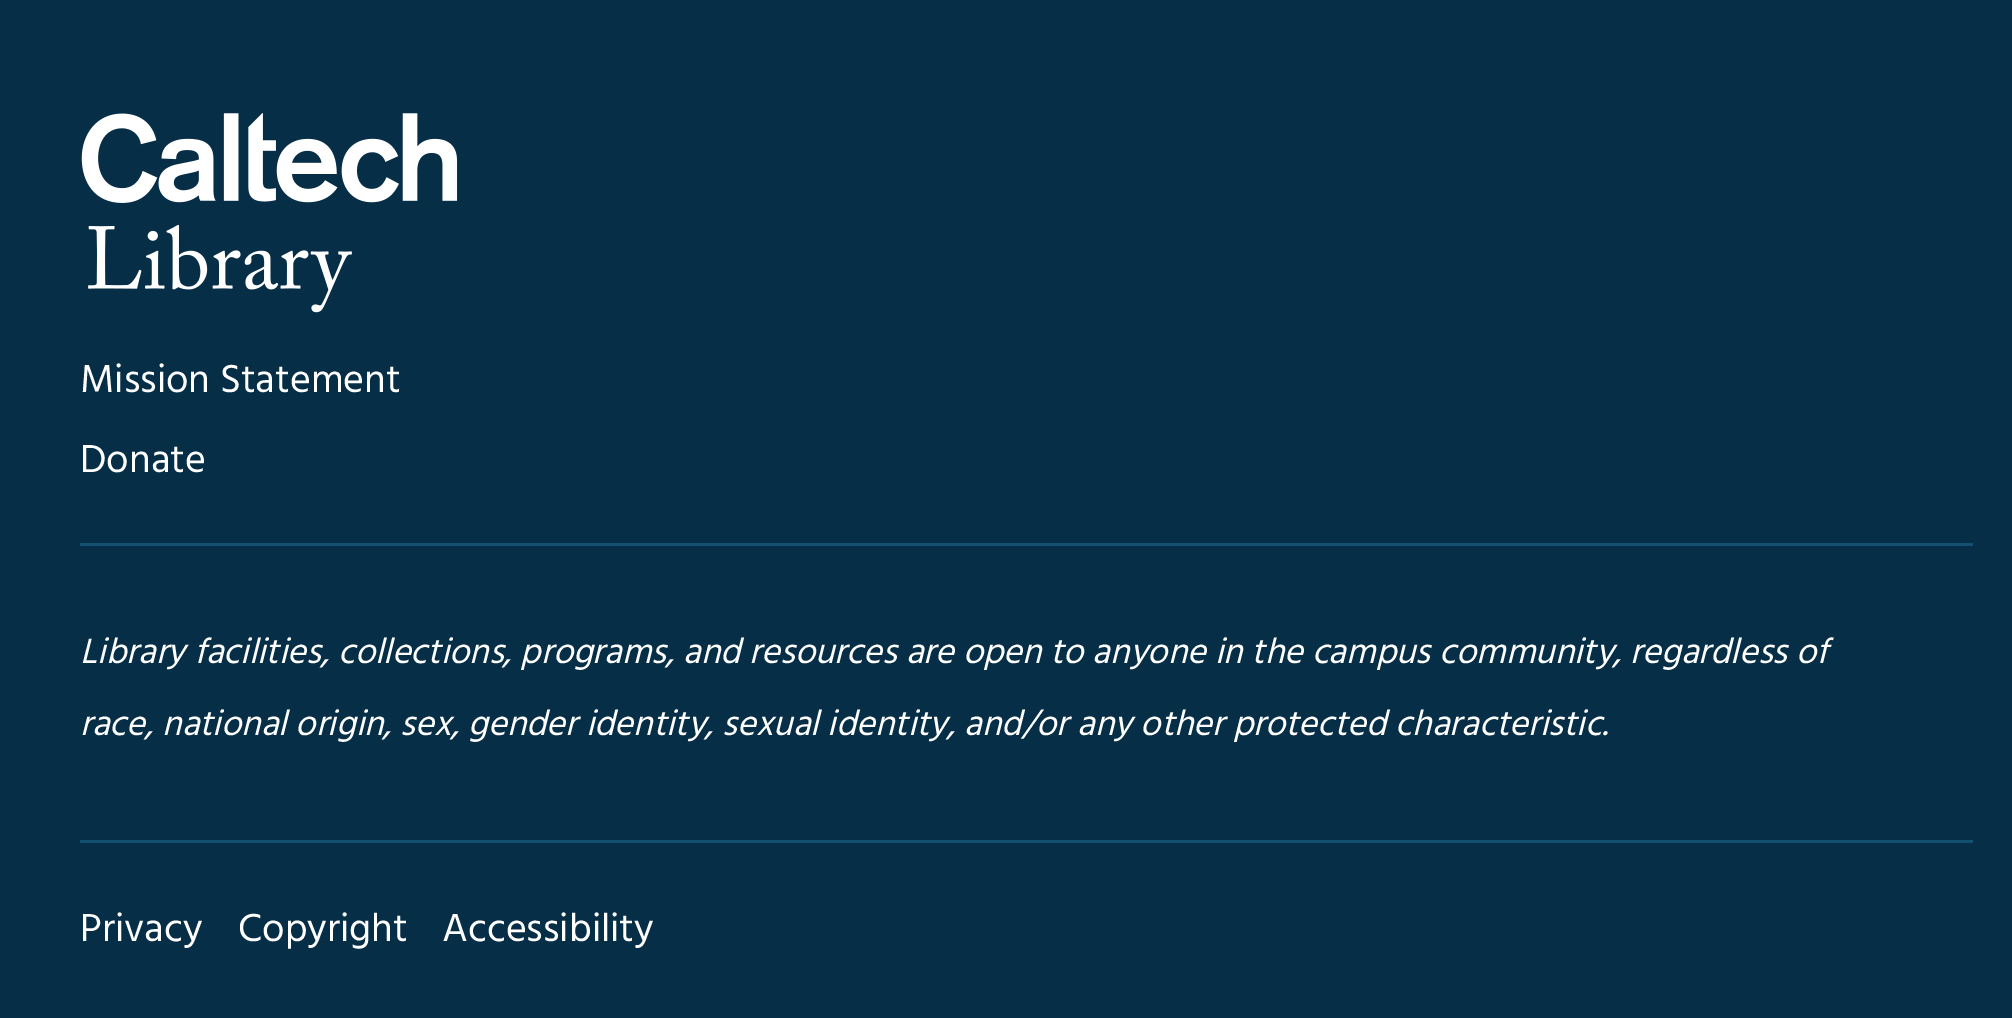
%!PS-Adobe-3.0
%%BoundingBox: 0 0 2012 1018
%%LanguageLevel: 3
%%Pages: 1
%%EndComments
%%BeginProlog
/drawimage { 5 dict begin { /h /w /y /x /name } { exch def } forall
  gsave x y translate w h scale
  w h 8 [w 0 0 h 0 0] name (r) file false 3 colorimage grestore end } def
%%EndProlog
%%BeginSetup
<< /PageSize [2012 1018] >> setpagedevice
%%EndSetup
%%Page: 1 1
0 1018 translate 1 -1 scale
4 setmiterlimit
1 setgray
0 0 2012 1018 rectfill
0.024 0.18 0.278 setrgbcolor
newpath 0 -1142 moveto 1409 -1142 lineto 1742 -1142 2012 -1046 2012 -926 curveto 2012 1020 lineto 0 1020 lineto closepath fill
(images/1.raw) 81 113 377 200 drawimage
0.075 0.314 0.443 setrgbcolor
80 543 1893 3 rectfill
80 840 1893 3 rectfill
/Hind-Regular [40 0 0 -40 0 0] selectfont
1 setgray
80 392 moveto (Mission Statement) show
80 472 moveto (Donate) show
/Hind-Italic [36 0 0 -36 0 0] selectfont
80 663 moveto (Library facilities, collections, programs, and resources are open to anyone in the campus community, regardless of) show
80 735 moveto (race, national origin, sex, gender identity, sexual identity, and/or any other protected characteristic.) show
/Hind-Regular [40 0 0 -40 0 0] selectfont
80 941 moveto (Privacy) show
238 941 moveto (Copyright) show
442 941 moveto (Accessibility) show
showpage
%%EOF
